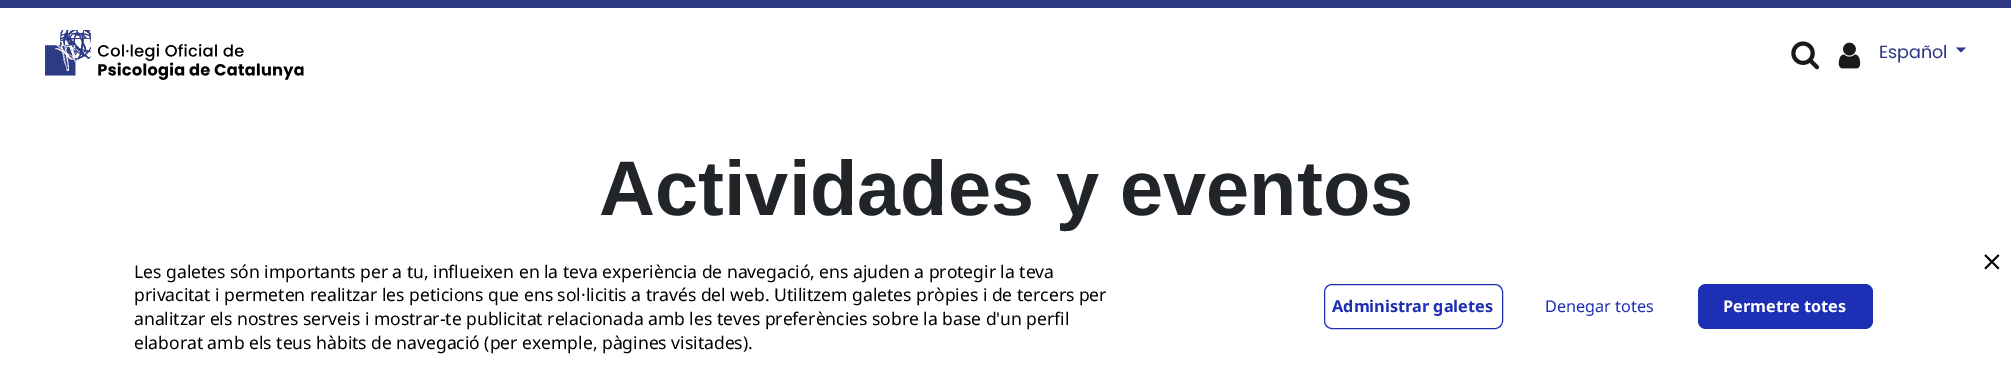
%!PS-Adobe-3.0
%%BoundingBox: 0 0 2011 378
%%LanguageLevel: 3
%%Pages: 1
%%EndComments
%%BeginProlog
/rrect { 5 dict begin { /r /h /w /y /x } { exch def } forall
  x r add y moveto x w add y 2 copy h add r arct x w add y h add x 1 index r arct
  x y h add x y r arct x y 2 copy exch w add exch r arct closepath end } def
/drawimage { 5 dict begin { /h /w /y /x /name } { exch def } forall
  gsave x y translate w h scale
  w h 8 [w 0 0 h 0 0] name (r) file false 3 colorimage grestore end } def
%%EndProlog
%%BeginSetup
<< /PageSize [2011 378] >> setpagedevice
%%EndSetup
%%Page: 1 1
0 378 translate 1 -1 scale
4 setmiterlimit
1 setgray
0 0 2011 378 rectfill
0.176 0.224 0.522 setrgbcolor
0 0 2011 8 rectfill
(images/1.raw) 45 30 259 50 drawimage
(images/2.raw) 1791 41 29 29 drawimage
(images/3.raw) 1838 42 23 27 drawimage
newpath 1956 47.5 moveto 1966 47.5 lineto 1961 52.5 lineto closepath fill
(images/4.raw) 1984 254 16 16 drawimage
0.114 0.184 0.71 setrgbcolor
1324.5 284.5 178 44 7.5 rrect stroke
1698 284 175 45 8 rrect fill
/Poppins-Regular [17.5 0 0 -17.5 0 0] selectfont
0.176 0.224 0.522 setrgbcolor
1879 58 moveto (Español) show
/LiberationSans-Bold [77.5 0 0 -77.5 0 0] selectfont
0.129 0.145 0.161 setrgbcolor
599 215 moveto (Actividades y eventos) show
/NotoSans-Regular [17.5 0 0 -17.5 0 0] selectfont
0 setgray
134 278 moveto (Les galetes són importants per a tu, influeixen en la teva experiència de navegació, ens ajuden a protegir la teva) show
134 301 moveto (privacitat i permeten realitzar les peticions que ens sol·licitis a través del web. Utilitzem galetes pròpies i de tercers per) show
134 325 moveto (analitzar els nostres serveis i mostrar-te publicitat relacionada amb les teves preferències sobre la base d'un perfil) show
134 349 moveto (elaborat amb els teus hàbits de navegació \(per exemple, pàgines visitades\).) show
/NotoSans-Bold [16.25 0 0 -16.25 0 0] selectfont
0.114 0.184 0.71 setrgbcolor
1332 312 moveto (Administrar galetes) show
/NotoSans-Regular [16.25 0 0 -16.25 0 0] selectfont
1545 312 moveto (Denegar totes) show
/NotoSans-Bold [16.25 0 0 -16.25 0 0] selectfont
1 setgray
1723 312 moveto (Permetre totes) show
showpage
%%EOF
